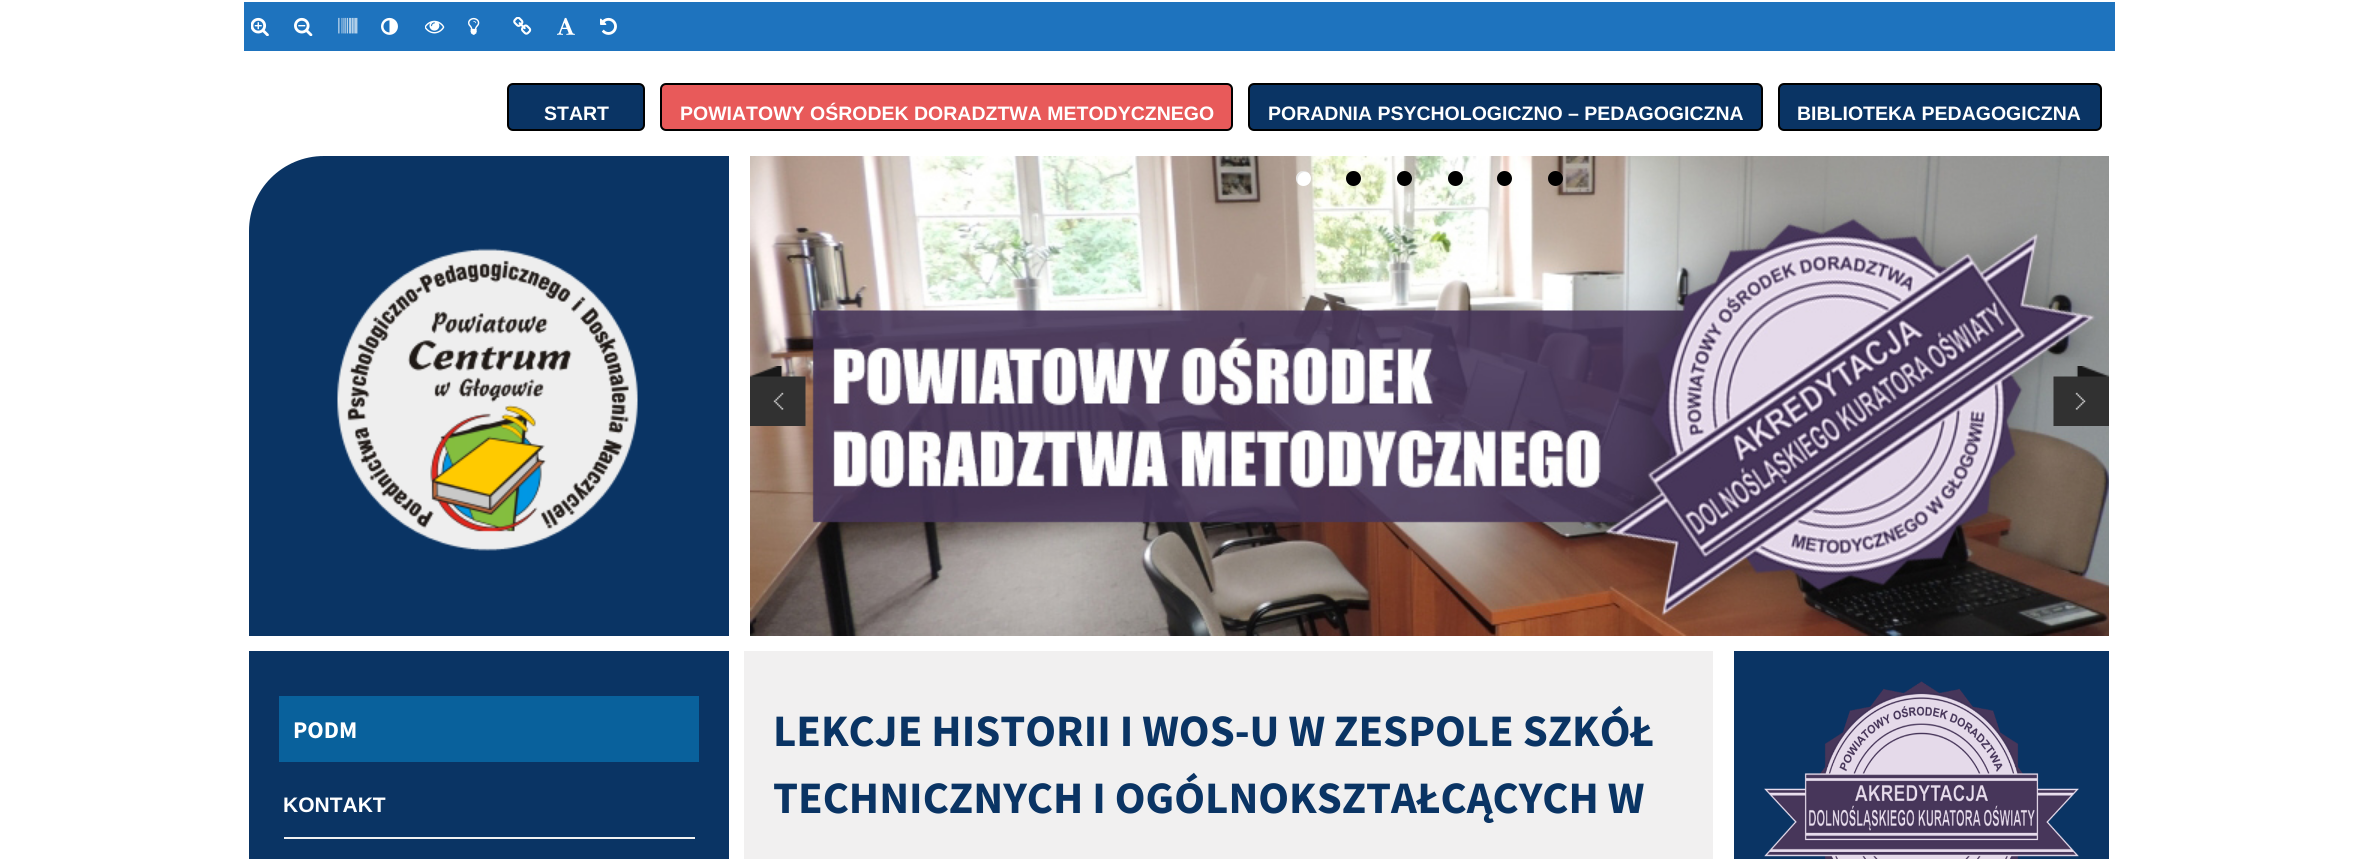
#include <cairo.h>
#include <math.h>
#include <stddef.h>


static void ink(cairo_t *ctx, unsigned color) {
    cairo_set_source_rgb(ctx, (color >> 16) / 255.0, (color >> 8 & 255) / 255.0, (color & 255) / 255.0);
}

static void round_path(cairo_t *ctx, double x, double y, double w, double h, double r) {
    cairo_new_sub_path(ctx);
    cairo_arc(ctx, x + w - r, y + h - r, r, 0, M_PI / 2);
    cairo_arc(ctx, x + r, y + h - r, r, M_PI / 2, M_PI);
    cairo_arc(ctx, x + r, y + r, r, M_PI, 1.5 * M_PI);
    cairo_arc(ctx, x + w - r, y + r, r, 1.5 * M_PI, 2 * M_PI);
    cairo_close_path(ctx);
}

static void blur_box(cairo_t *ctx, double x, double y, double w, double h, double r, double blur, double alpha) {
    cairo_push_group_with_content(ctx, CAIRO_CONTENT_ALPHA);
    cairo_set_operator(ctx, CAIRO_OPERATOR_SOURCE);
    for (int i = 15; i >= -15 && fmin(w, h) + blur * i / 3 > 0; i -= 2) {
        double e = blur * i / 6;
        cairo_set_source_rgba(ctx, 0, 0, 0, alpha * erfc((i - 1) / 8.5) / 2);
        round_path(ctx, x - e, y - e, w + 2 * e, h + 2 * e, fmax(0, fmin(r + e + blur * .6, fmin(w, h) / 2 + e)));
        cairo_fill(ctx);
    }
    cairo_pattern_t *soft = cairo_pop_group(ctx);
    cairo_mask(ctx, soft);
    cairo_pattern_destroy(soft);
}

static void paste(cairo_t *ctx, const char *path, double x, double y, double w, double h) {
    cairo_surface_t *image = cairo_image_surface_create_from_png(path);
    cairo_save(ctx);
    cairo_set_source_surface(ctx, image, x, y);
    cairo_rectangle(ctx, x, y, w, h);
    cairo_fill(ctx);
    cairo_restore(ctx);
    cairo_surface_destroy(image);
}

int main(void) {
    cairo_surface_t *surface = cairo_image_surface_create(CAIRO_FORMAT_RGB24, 2356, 859);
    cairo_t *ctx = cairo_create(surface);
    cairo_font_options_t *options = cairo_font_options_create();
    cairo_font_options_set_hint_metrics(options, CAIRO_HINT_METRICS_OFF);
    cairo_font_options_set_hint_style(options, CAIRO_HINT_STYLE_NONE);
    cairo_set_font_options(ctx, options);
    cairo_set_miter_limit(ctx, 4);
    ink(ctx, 0xFFFFFF);
    cairo_paint(ctx);
    ink(ctx, 0x1E73BE);
    cairo_rectangle(ctx, 244, 2, 1871, 49);
    cairo_fill(ctx);
    paste(ctx, "media/1.png", 251, 17, 18, 19);
    paste(ctx, "media/2.png", 294, 17, 19, 19);
    paste(ctx, "media/3.png", 338, 17, 20, 17);
    paste(ctx, "media/4.png", 381, 17, 17, 18);
    paste(ctx, "media/5.png", 425, 20, 20, 14);
    paste(ctx, "media/6.png", 468, 17, 12, 18);
    paste(ctx, "media/7.png", 513, 17, 19, 18);
    paste(ctx, "media/8.png", 557, 17, 18, 18);
    paste(ctx, "media/9.png", 600, 17, 17, 18);
    ink(ctx, 0x0A3464);
    round_path(ctx, 508, 84, 136, 46, 5);
    cairo_fill_preserve(ctx);
    ink(ctx, 0x000000);
    cairo_stroke(ctx);
    cairo_select_font_face(ctx, "Liberation Sans", CAIRO_FONT_SLANT_NORMAL, CAIRO_FONT_WEIGHT_BOLD);
    cairo_set_font_size(ctx, 19.5);
    ink(ctx, 0xFFFFFF);
    cairo_move_to(ctx, 544, 120);
    cairo_show_text(ctx, "START");
    ink(ctx, 0xE85A5A);
    round_path(ctx, 661, 84, 571, 46, 5);
    cairo_fill_preserve(ctx);
    ink(ctx, 0x000000);
    cairo_stroke(ctx);
    ink(ctx, 0xFFFFFF);
    cairo_move_to(ctx, 680, 120);
    cairo_show_text(ctx, "POWIATOWY OŚRODEK DORADZTWA METODYCZNEGO");
    ink(ctx, 0x0A3464);
    round_path(ctx, 1249, 84, 513, 46, 5);
    cairo_fill_preserve(ctx);
    ink(ctx, 0x000000);
    cairo_stroke(ctx);
    ink(ctx, 0xFFFFFF);
    cairo_move_to(ctx, 1268, 120);
    cairo_show_text(ctx, "PORADNIA PSYCHOLOGICZNO – PEDAGOGICZNA");
    ink(ctx, 0x0A3464);
    round_path(ctx, 1779, 84, 322, 46, 5);
    cairo_fill_preserve(ctx);
    ink(ctx, 0x000000);
    cairo_stroke(ctx);
    ink(ctx, 0xFFFFFF);
    cairo_move_to(ctx, 1797, 120);
    cairo_show_text(ctx, "BIBLIOTEKA PEDAGOGICZNA");
    ink(ctx, 0x0A3464);
    cairo_new_path(ctx);
    cairo_move_to(ctx, 324, 156);
    cairo_line_to(ctx, 729, 156);
    cairo_line_to(ctx, 729, 636);
    cairo_line_to(ctx, 249, 636);
    cairo_line_to(ctx, 249, 231);
    cairo_curve_to(ctx, 249, 189.5, 282.5, 156, 324, 156);
    cairo_close_path(ctx);
    cairo_fill(ctx);
    paste(ctx, "media/10.png", 337, 248, 301, 303);
    paste(ctx, "media/11.png", 750, 156, 1359, 480);
    ink(ctx, 0xFFFFFF);
    cairo_arc(ctx, 1303.5, 178.5, 7.5, 0, 2 * M_PI);
    cairo_fill(ctx);
    cairo_set_source_rgba(ctx, 0, 0, 0, 0.1);
    cairo_new_path(ctx);
    cairo_move_to(ctx, 1305, 172);
    cairo_line_to(ctx, 1308, 172.5);
    cairo_curve_to(ctx, 1301, 167, 1291.5, 177.5, 1298.5, 184);
    cairo_curve_to(ctx, 1296, 179.5, 1298.5, 172, 1305, 172);
    cairo_close_path(ctx);
    cairo_fill(ctx);
    ink(ctx, 0x000000);
    cairo_arc(ctx, 1353.5, 178.5, 7.5, 0, 2 * M_PI);
    cairo_fill(ctx);
    cairo_set_source_rgba(ctx, 0, 0, 0, 0.1);
    cairo_new_path(ctx);
    cairo_move_to(ctx, 1354, 172);
    cairo_curve_to(ctx, 1357, 172, 1359.5, 173.5, 1360.5, 176);
    cairo_curve_to(ctx, 1356.5, 165, 1340, 174.5, 1348, 183.5);
    cairo_curve_to(ctx, 1346, 178.5, 1348, 172, 1354, 172);
    cairo_close_path(ctx);
    cairo_fill(ctx);
    ink(ctx, 0x000000);
    cairo_arc(ctx, 1404.5, 178.5, 7.5, 0, 2 * M_PI);
    cairo_fill(ctx);
    cairo_set_source_rgba(ctx, 0, 0, 0, 0.1);
    cairo_new_path(ctx);
    cairo_move_to(ctx, 1406, 172);
    cairo_curve_to(ctx, 1407.5, 172, 1409, 172.5, 1410, 173.5);
    cairo_curve_to(ctx, 1403, 166, 1392, 177, 1399.5, 184);
    cairo_curve_to(ctx, 1397, 179.5, 1399.5, 172, 1406, 172);
    cairo_close_path(ctx);
    cairo_fill(ctx);
    ink(ctx, 0x000000);
    cairo_arc(ctx, 1455.5, 178.5, 7.5, 0, 2 * M_PI);
    cairo_fill(ctx);
    cairo_set_source_rgba(ctx, 0, 0, 0, 0.1);
    cairo_new_path(ctx);
    cairo_move_to(ctx, 1456, 172);
    cairo_curve_to(ctx, 1459, 172, 1461.5, 173.5, 1462.5, 176);
    cairo_curve_to(ctx, 1458.5, 165, 1442, 174.5, 1450, 183.5);
    cairo_curve_to(ctx, 1448, 178.5, 1450, 172, 1456, 172);
    cairo_close_path(ctx);
    cairo_fill(ctx);
    ink(ctx, 0x000000);
    cairo_arc(ctx, 1504.5, 178.5, 7.5, 0, 2 * M_PI);
    cairo_fill(ctx);
    cairo_set_source_rgba(ctx, 0, 0, 0, 0.1);
    cairo_new_path(ctx);
    cairo_move_to(ctx, 1506, 172);
    cairo_line_to(ctx, 1509, 172.5);
    cairo_curve_to(ctx, 1502, 167, 1492.5, 177.5, 1499.5, 184);
    cairo_curve_to(ctx, 1497, 179.5, 1499.5, 172, 1506, 172);
    cairo_close_path(ctx);
    cairo_fill(ctx);
    ink(ctx, 0xFFFFFF);
    blur_box(ctx, 1550, 173, 15, 15, 7.5, 1, 0.1);
    ink(ctx, 0x000000);
    cairo_arc(ctx, 1555.5, 178.5, 7.5, 0, 2 * M_PI);
    cairo_fill(ctx);
    cairo_set_source_rgba(ctx, 0, 0, 0, 0.1);
    cairo_new_path(ctx);
    cairo_move_to(ctx, 1557, 172);
    cairo_line_to(ctx, 1560, 172.5);
    cairo_curve_to(ctx, 1553, 167, 1543.5, 177.5, 1550.5, 184);
    cairo_curve_to(ctx, 1548, 179.5, 1550.5, 172, 1557, 172);
    cairo_close_path(ctx);
    cairo_fill(ctx);
    paste(ctx, "media/12.png", 750, 366, 56, 60);
    paste(ctx, "media/13.png", 2053, 366, 56, 60);
    ink(ctx, 0x0A3464);
    cairo_rectangle(ctx, 249, 651, 480, 208);
    cairo_fill(ctx);
    ink(ctx, 0x09619C);
    cairo_rectangle(ctx, 279, 696, 420, 66);
    cairo_fill(ctx);
    cairo_select_font_face(ctx, "Source Sans Pro", CAIRO_FONT_SLANT_NORMAL, CAIRO_FONT_WEIGHT_BOLD);
    cairo_set_font_size(ctx, 24);
    ink(ctx, 0xFFFFFF);
    cairo_move_to(ctx, 293, 738);
    cairo_show_text(ctx, "PODM");
    ink(ctx, 0xF1F1F1);
    cairo_rectangle(ctx, 284, 837, 411, 2);
    cairo_fill(ctx);
    cairo_select_font_face(ctx, "Liberation Sans", CAIRO_FONT_SLANT_NORMAL, CAIRO_FONT_WEIGHT_BOLD);
    cairo_set_font_size(ctx, 21);
    ink(ctx, 0xFFFFFF);
    cairo_move_to(ctx, 283, 812);
    cairo_show_text(ctx, "KONTAKT");
    ink(ctx, 0xF1F0F0);
    cairo_rectangle(ctx, 744, 651, 969, 208);
    cairo_fill(ctx);
    cairo_select_font_face(ctx, "Source Sans Pro", CAIRO_FONT_SLANT_NORMAL, CAIRO_FONT_WEIGHT_BOLD);
    cairo_set_font_size(ctx, 45);
    ink(ctx, 0x0A3464);
    cairo_move_to(ctx, 773, 746);
    cairo_show_text(ctx, "LEKCJE HISTORII I WOS-U W ZESPOLE SZKÓŁ");
    cairo_move_to(ctx, 773, 813);
    cairo_show_text(ctx, "TECHNICZNYCH I OGÓLNOKSZTAŁCĄCYCH W");
    cairo_rectangle(ctx, 1734, 651, 375, 208);
    cairo_fill(ctx);
    paste(ctx, "media/14.png", 1764, 681, 315, 178);
    cairo_surface_write_to_png(surface, "image.png");
    cairo_font_options_destroy(options);
    cairo_destroy(ctx);
    cairo_surface_destroy(surface);
    return 0;
}
